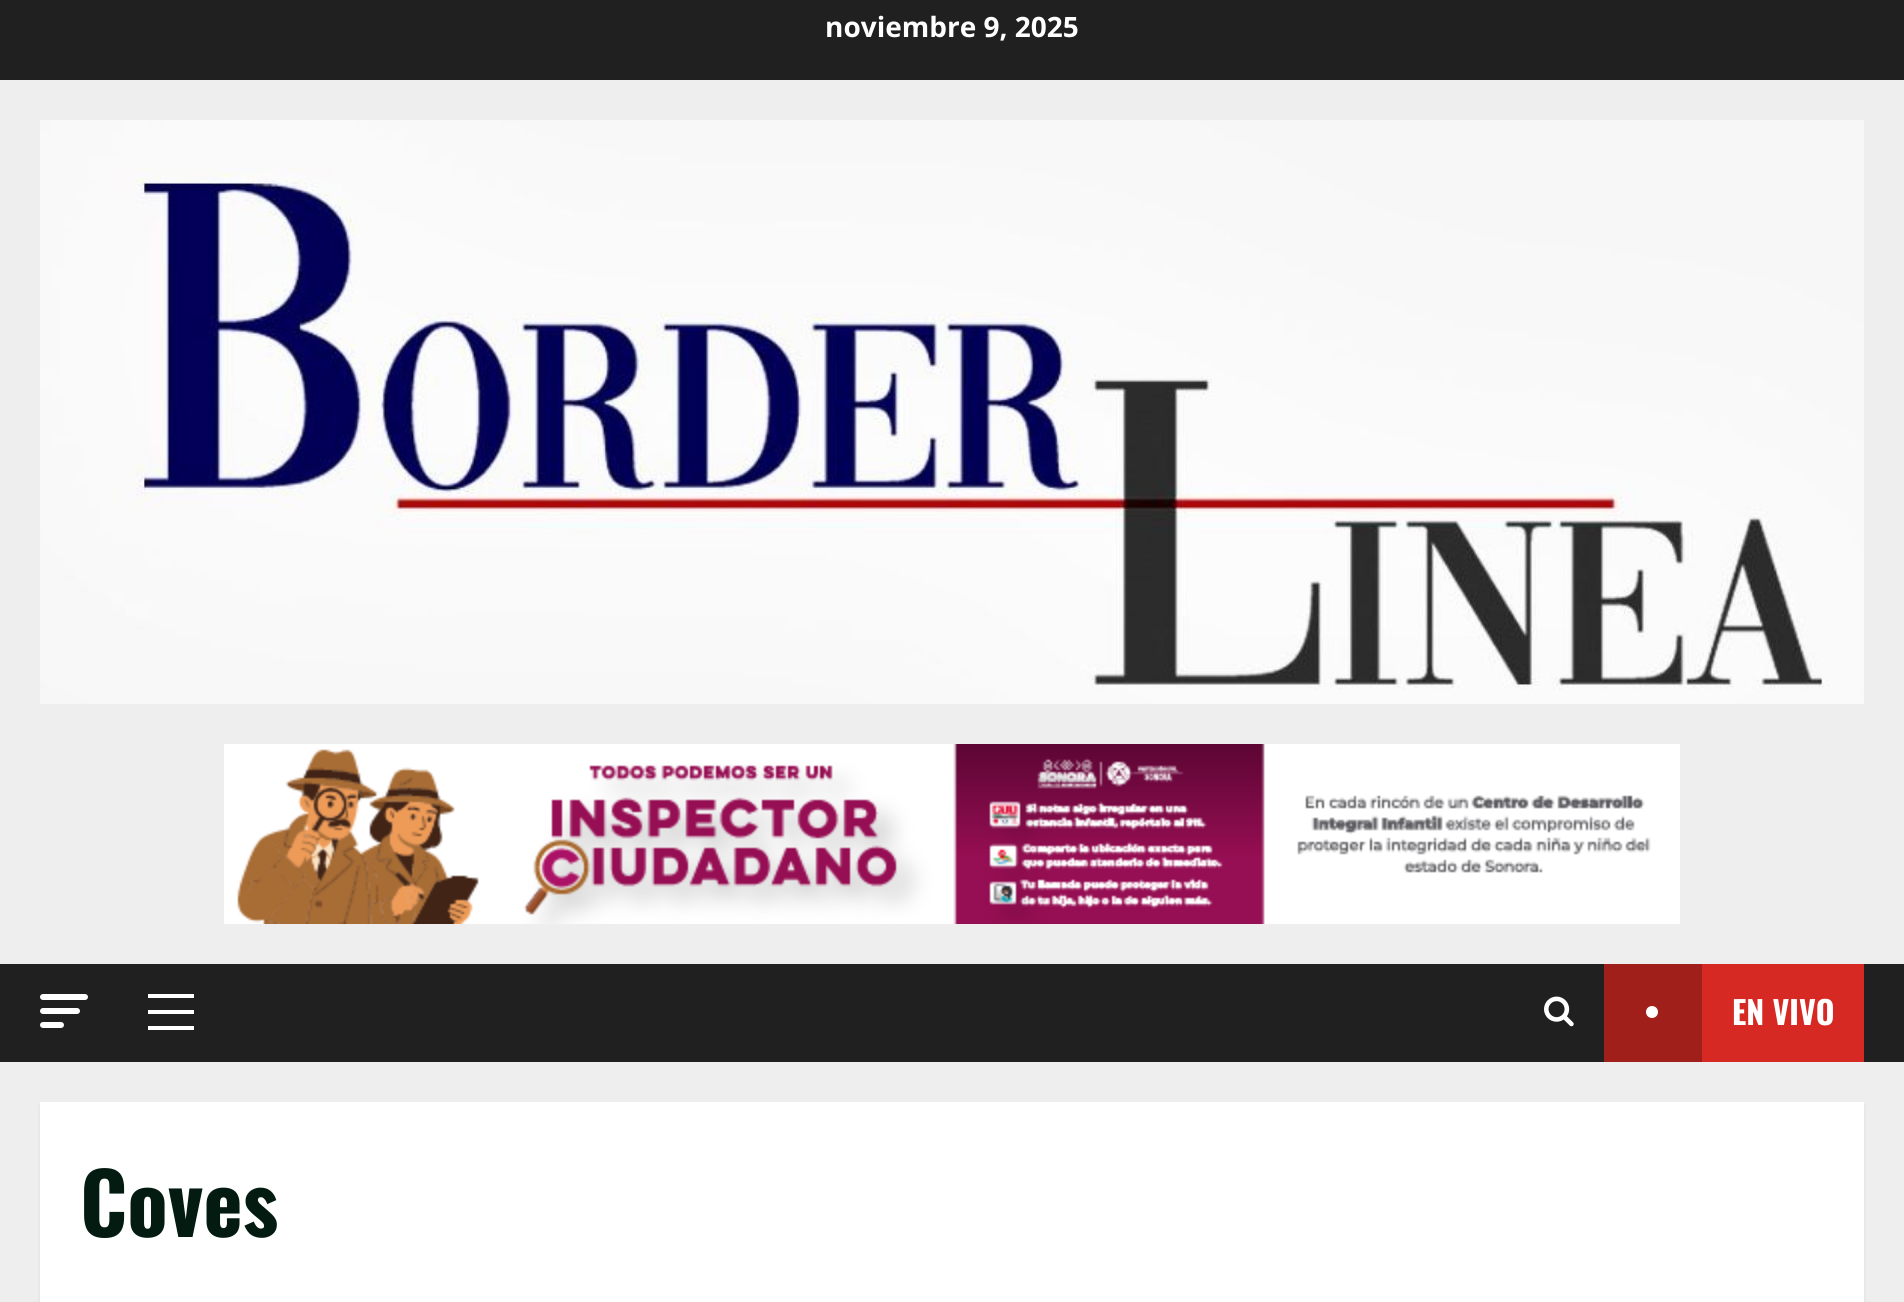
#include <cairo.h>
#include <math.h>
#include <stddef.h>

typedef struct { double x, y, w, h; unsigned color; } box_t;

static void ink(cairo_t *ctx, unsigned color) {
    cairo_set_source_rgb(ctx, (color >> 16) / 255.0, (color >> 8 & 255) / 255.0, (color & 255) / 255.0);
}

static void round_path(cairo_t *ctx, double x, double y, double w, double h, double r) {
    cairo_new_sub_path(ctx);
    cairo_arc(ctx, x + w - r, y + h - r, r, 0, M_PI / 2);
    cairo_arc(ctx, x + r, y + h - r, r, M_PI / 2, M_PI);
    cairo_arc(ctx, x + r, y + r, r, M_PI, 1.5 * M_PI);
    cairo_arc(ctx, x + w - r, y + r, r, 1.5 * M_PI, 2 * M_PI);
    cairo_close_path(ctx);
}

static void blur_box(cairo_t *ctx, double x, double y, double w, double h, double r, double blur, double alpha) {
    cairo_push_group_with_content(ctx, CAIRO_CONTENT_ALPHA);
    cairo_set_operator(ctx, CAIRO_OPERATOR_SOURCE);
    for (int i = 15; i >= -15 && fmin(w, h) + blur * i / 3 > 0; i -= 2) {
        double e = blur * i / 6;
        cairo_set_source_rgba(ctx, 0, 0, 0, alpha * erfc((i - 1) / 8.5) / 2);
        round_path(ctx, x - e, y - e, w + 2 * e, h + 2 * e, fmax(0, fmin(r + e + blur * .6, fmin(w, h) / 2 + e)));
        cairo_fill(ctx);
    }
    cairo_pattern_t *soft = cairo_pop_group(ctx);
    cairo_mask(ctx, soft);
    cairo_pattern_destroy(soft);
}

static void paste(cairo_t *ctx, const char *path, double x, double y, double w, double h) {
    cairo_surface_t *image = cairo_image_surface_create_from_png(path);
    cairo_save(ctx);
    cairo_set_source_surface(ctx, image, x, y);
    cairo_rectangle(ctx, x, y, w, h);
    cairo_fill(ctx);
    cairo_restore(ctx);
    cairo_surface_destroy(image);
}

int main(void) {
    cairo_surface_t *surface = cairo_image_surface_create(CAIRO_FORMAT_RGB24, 1904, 1302);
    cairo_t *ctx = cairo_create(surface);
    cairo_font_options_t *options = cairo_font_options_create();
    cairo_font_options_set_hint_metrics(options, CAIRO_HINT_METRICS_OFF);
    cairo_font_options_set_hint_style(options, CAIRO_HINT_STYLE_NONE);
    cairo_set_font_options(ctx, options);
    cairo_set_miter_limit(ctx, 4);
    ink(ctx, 0xEEEEEE);
    cairo_paint(ctx);
    ink(ctx, 0x202020);
    cairo_rectangle(ctx, 0, 0, 1904, 80);
    cairo_fill(ctx);
    cairo_select_font_face(ctx, "Open Sans", CAIRO_FONT_SLANT_NORMAL, CAIRO_FONT_WEIGHT_BOLD);
    cairo_set_font_size(ctx, 28);
    ink(ctx, 0xFFFFFF);
    cairo_move_to(ctx, 825, 37);
    cairo_show_text(ctx, "noviembre 9, 2025");
    paste(ctx, "media/1.png", 40, 120, 1824, 584);
    paste(ctx, "media/2.png", 224, 744, 1456, 180);
    ink(ctx, 0x202020);
    cairo_rectangle(ctx, 0, 964, 1904, 98);
    cairo_fill(ctx);
    ink(ctx, 0xFFFFFF);
    round_path(ctx, 40, 994, 48, 6, 3);
    cairo_fill(ctx);
    round_path(ctx, 40, 1008, 40, 6, 3);
    cairo_fill(ctx);
    round_path(ctx, 40, 1022, 24, 6, 3);
    cairo_fill(ctx);
    {
        static const box_t items[] = {
            {148, 1010, 46, 4, 0xFFFFFF},
            {148, 994, 46, 4, 0xFFFFFF},
            {148, 1026, 46, 4, 0xFFFFFF},
        };
        for (size_t i = 0; i < sizeof items / sizeof *items; i++) {
            ink(ctx, items[i].color);
            cairo_rectangle(ctx, items[i].x, items[i].y, items[i].w, items[i].h);
            cairo_fill(ctx);
        }
    }
    paste(ctx, "media/3.png", 1544, 996, 30, 31);
    ink(ctx, 0xD72924);
    cairo_rectangle(ctx, 1702, 964, 162, 98);
    cairo_fill(ctx);
    ink(ctx, 0xA11F1B);
    cairo_rectangle(ctx, 1604, 964, 98, 98);
    cairo_fill(ctx);
    ink(ctx, 0xFFFFFF);
    cairo_arc(ctx, 1652, 1012, 6, 0, 2 * M_PI);
    cairo_fill(ctx);
    cairo_select_font_face(ctx, "Oswald", CAIRO_FONT_SLANT_NORMAL, CAIRO_FONT_WEIGHT_BOLD);
    cairo_set_font_size(ctx, 32);
    cairo_move_to(ctx, 1732, 1025);
    cairo_show_text(ctx, "EN VIVO");
    ink(ctx, 0x000000);
    blur_box(ctx, 40, 1106, 1824, 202, 0, 2, 0.08);
    ink(ctx, 0xFFFFFF);
    cairo_rectangle(ctx, 40, 1102, 1824, 200);
    cairo_fill(ctx);
    cairo_set_font_size(ctx, 84);
    ink(ctx, 0x031B11);
    cairo_move_to(ctx, 80, 1237);
    cairo_show_text(ctx, "Coves");
    cairo_surface_write_to_png(surface, "image.png");
    cairo_font_options_destroy(options);
    cairo_destroy(ctx);
    cairo_surface_destroy(surface);
    return 0;
}
